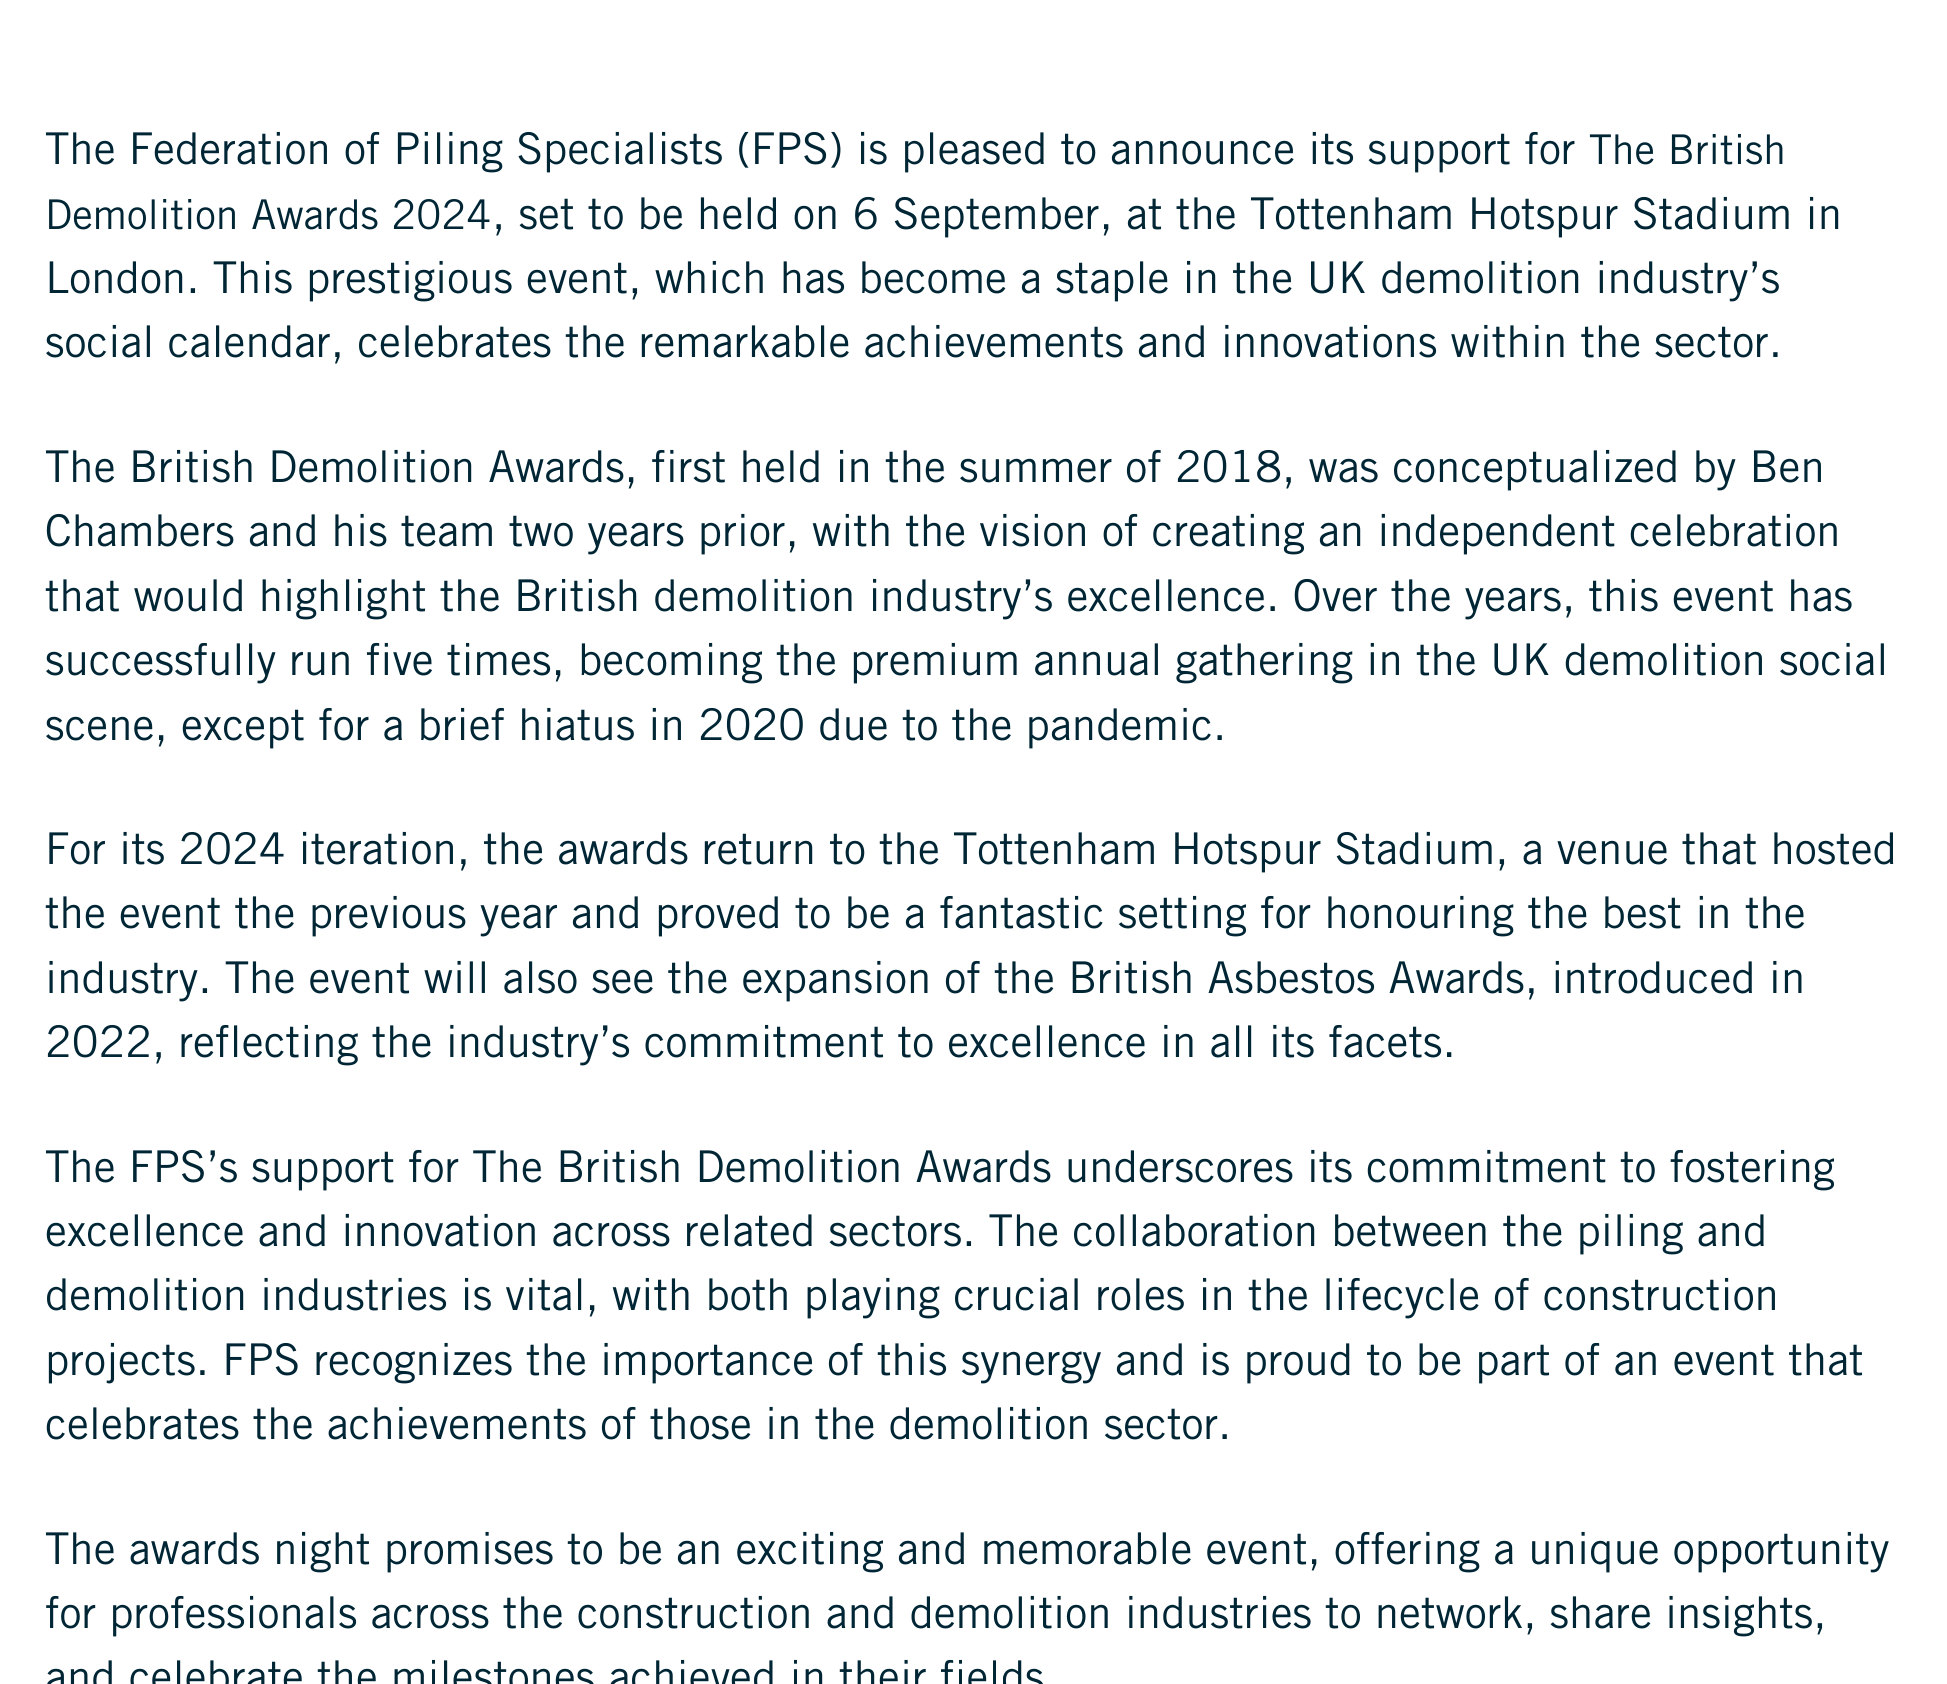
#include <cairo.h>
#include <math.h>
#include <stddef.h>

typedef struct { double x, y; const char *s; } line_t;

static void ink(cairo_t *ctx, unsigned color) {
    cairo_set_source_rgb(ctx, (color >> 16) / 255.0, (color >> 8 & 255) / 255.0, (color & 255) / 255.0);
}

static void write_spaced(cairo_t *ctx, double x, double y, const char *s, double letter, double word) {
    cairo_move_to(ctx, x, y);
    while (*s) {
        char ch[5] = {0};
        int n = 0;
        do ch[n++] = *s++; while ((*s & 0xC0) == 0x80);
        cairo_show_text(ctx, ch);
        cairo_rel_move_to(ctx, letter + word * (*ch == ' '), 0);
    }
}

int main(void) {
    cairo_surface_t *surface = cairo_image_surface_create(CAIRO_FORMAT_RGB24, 1947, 1684);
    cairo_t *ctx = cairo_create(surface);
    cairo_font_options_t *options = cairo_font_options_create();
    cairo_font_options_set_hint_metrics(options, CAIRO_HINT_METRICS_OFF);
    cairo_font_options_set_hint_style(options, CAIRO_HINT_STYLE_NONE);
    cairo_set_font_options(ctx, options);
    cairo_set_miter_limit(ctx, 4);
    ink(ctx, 0xFFFFFF);
    cairo_paint(ctx);
    cairo_select_font_face(ctx, "Trade Gothic", CAIRO_FONT_SLANT_NORMAL, CAIRO_FONT_WEIGHT_NORMAL);
    cairo_set_font_size(ctx, 43.8);
    ink(ctx, 0x002635);
    write_spaced(ctx, 45, 164, "The Federation of Piling Specialists (FPS) is pleased to announce its support for", 0, -0.2);
    cairo_set_font_size(ctx, 41);
    cairo_move_to(ctx, 1589, 164);
    cairo_show_text(ctx, "The British");
    cairo_move_to(ctx, 45, 229);
    cairo_show_text(ctx, "Demolition Awards 2024");
    cairo_set_font_size(ctx, 43.8);
    write_spaced(ctx, 492, 229, ", set to be held on 6 September, at the Tottenham Hotspur Stadium in", 0, -0.1);
    {
        static const line_t items[] = {
            {45, 293, "London. This prestigious event, which has become a staple in the UK demolition industry’s"},
            {45, 357, "social calendar, celebrates the remarkable achievements and innovations within the sector."},
            {45, 482, "The British Demolition Awards, first held in the summer of 2018, was conceptualized by Ben"},
            {45, 546, "Chambers and his team two years prior, with the vision of creating an independent celebration"},
            {45, 611, "that would highlight the British demolition industry’s excellence. Over the years, this event has"},
            {45, 675, "successfully run five times, becoming the premium annual gathering in the UK demolition social"},
        };
        for (size_t i = 0; i < sizeof items / sizeof *items; i++) {
            write_spaced(ctx, items[i].x, items[i].y, items[i].s, 0, -0.25);
        }
    }
    write_spaced(ctx, 45, 740, "scene, except for a brief hiatus in 2020 due to the pandemic.", 0, -0.2);
    write_spaced(ctx, 45, 864, "For its 2024 iteration, the awards return to the Tottenham Hotspur Stadium, a venue that hosted", 0, -0.2);
    write_spaced(ctx, 45, 928, "the event the previous year and proved to be a fantastic setting for honouring the best in the", 0, -0.1);
    {
        static const line_t items[] = {
            {45, 993, "industry. The event will also see the expansion of the British Asbestos Awards, introduced in"},
            {45, 1057, "2022, reflecting the industry’s commitment to excellence in all its facets."},
            {45, 1182, "The FPS’s support for The British Demolition Awards underscores its commitment to fostering"},
            {45, 1246, "excellence and innovation across related sectors. The collaboration between the piling and"},
            {45, 1310, "demolition industries is vital, with both playing crucial roles in the lifecycle of construction"},
        };
        for (size_t i = 0; i < sizeof items / sizeof *items; i++) {
            write_spaced(ctx, items[i].x, items[i].y, items[i].s, 0, -0.25);
        }
    }
    write_spaced(ctx, 45, 1375, "projects. FPS recognizes the importance of this synergy and is proud to be part of an event that", 0, -0.2);
    {
        static const line_t items[] = {
            {45, 1439, "celebrates the achievements of those in the demolition sector."},
            {45, 1564, "The awards night promises to be an exciting and memorable event, offering a unique opportunity"},
            {45, 1628, "for professionals across the construction and demolition industries to network, share insights,"},
            {45, 1692, "and celebrate the milestones achieved in their fields"},
        };
        for (size_t i = 0; i < sizeof items / sizeof *items; i++) {
            write_spaced(ctx, items[i].x, items[i].y, items[i].s, 0, -0.25);
        }
    }
    cairo_surface_write_to_png(surface, "image.png");
    cairo_font_options_destroy(options);
    cairo_destroy(ctx);
    cairo_surface_destroy(surface);
    return 0;
}
